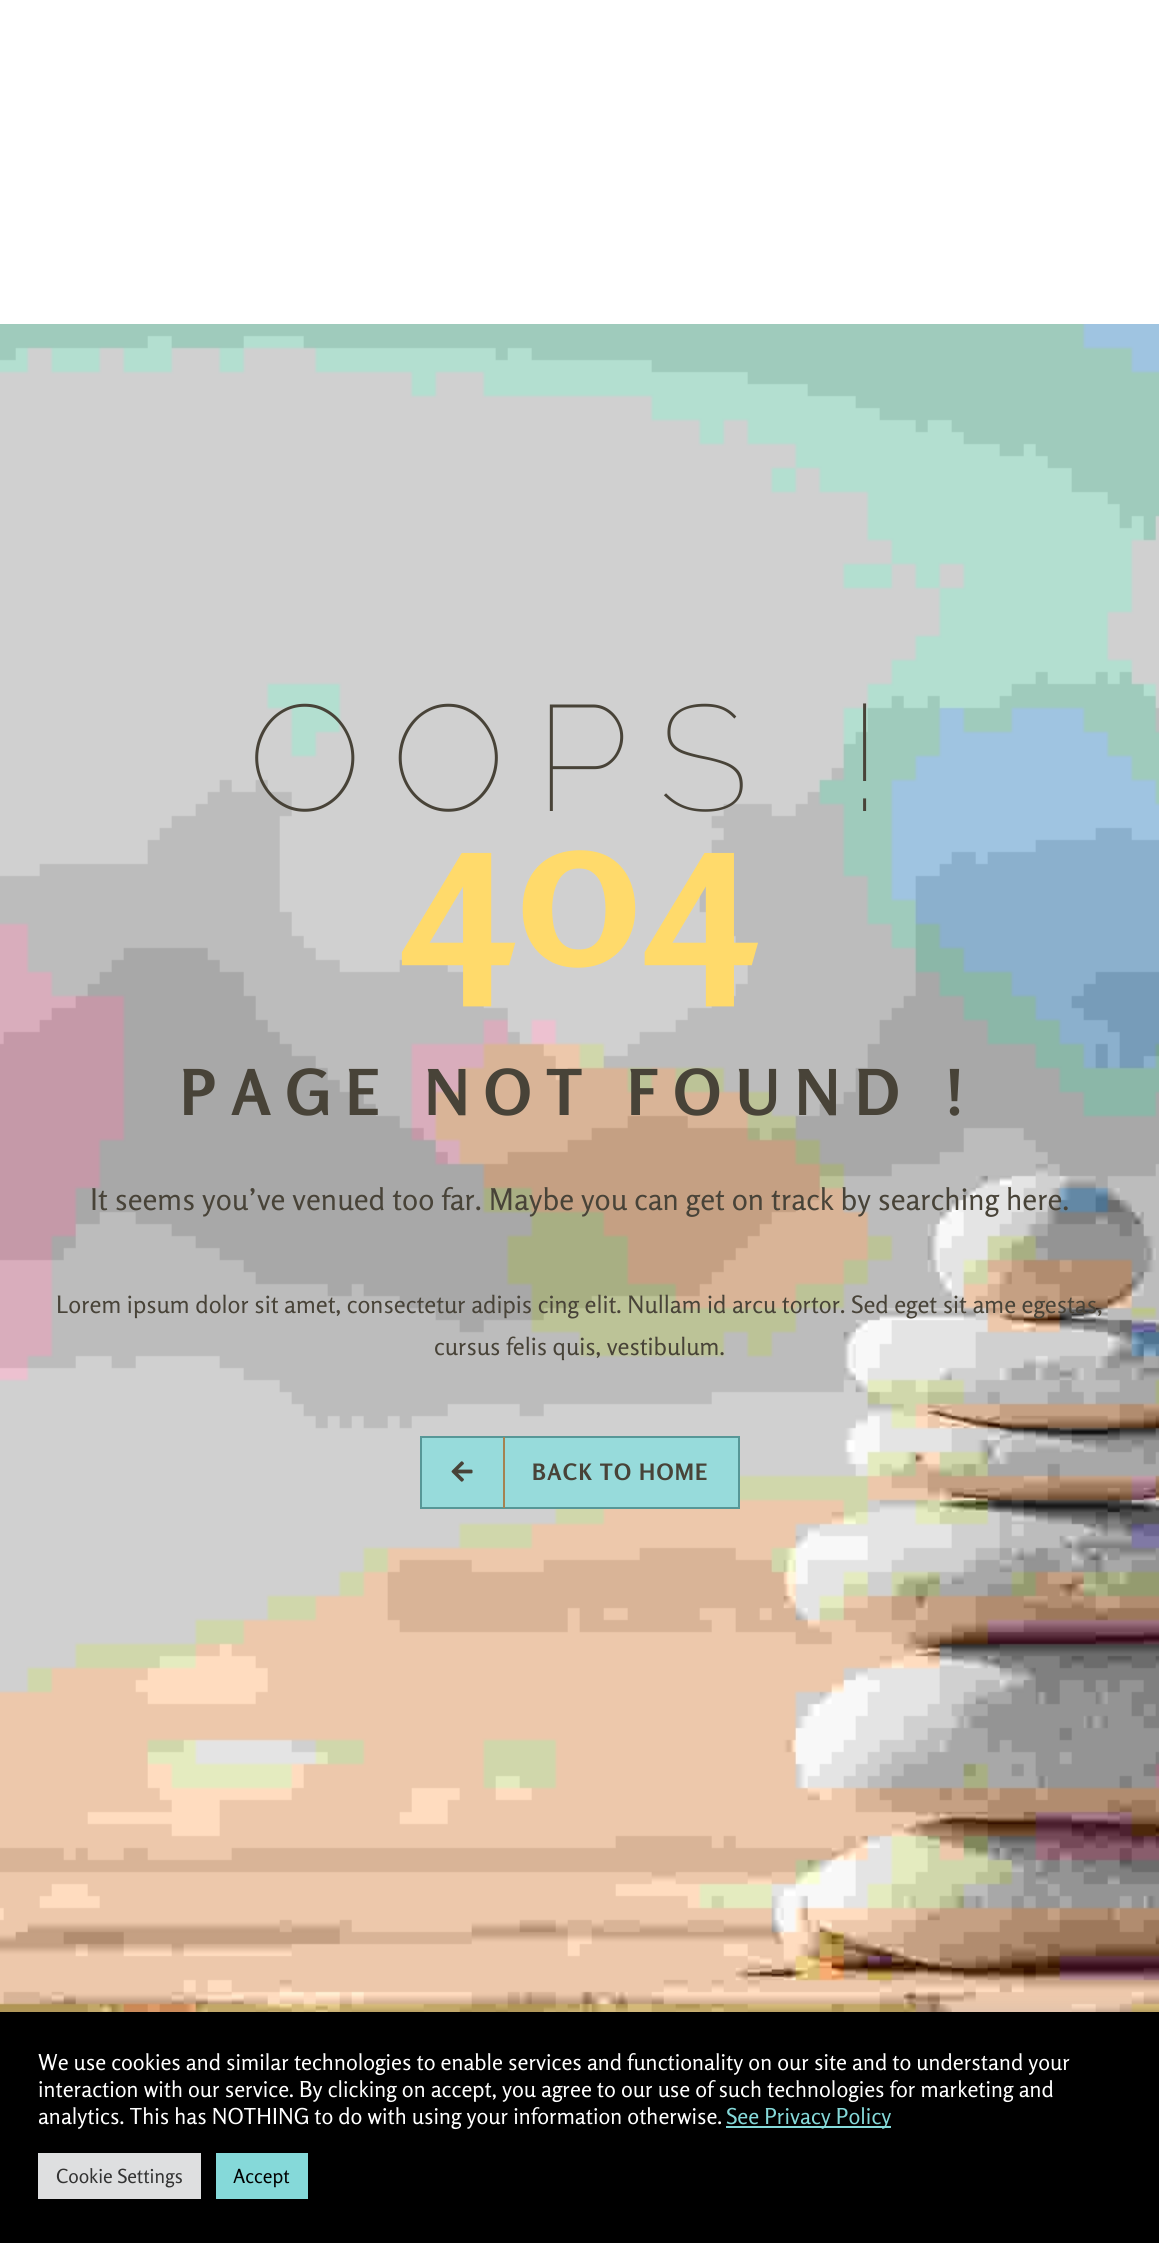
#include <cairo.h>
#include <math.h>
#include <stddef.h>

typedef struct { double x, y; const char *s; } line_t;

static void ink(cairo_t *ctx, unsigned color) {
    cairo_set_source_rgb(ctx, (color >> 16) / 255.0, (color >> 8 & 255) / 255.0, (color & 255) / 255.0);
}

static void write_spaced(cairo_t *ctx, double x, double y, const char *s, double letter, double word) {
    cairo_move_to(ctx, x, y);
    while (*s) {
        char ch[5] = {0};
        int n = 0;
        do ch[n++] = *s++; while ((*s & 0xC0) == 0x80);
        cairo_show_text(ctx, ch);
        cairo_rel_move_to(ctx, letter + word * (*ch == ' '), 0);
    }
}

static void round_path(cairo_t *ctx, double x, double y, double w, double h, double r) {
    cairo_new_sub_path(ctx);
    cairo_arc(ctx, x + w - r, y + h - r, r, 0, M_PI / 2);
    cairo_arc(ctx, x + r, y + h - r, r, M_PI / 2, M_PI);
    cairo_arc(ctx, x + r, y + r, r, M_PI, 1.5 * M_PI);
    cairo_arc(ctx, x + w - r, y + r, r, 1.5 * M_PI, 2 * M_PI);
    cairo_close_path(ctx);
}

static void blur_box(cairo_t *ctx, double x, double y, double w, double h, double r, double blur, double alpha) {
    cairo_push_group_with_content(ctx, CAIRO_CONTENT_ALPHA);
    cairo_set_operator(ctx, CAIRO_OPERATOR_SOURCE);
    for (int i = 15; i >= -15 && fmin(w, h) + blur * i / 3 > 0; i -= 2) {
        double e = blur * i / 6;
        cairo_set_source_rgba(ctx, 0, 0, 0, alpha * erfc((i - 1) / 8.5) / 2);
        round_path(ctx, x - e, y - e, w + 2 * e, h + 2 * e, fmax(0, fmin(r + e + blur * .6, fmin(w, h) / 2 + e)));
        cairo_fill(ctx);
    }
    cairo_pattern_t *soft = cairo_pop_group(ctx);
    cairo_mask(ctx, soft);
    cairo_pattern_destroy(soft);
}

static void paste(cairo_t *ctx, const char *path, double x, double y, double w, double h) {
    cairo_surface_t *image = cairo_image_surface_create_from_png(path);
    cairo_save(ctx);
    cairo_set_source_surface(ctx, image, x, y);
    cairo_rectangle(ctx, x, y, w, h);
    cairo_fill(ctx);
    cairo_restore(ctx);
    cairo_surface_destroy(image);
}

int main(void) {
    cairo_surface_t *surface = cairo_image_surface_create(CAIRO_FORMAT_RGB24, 1159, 2243);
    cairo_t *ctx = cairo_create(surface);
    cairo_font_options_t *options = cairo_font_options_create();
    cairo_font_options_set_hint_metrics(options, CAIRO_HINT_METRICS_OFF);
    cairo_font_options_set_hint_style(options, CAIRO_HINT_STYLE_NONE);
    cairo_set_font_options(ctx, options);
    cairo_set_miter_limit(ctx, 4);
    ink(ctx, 0xFFFFFF);
    cairo_paint(ctx);
    paste(ctx, "media/1.png", 0, 324, 1159, 1688);
    cairo_select_font_face(ctx, "Raleway Thin", CAIRO_FONT_SLANT_NORMAL, CAIRO_FONT_WEIGHT_NORMAL);
    cairo_set_font_size(ctx, 150);
    ink(ctx, 0x484338);
    write_spaced(ctx, 248, 811, "OOPS !", 30, 0);
    cairo_select_font_face(ctx, "Rosario", CAIRO_FONT_SLANT_NORMAL, CAIRO_FONT_WEIGHT_BOLD);
    cairo_set_font_size(ctx, 225);
    ink(ctx, 0xFFDA6B);
    write_spaced(ctx, 401, 965, "404", 1.5, 0);
    cairo_set_font_size(ctx, 63);
    ink(ctx, 0x484338);
    write_spaced(ctx, 180, 1115, "PAGE NOT FOUND !", 15, 0);
    cairo_select_font_face(ctx, "Rosario", CAIRO_FONT_SLANT_NORMAL, CAIRO_FONT_WEIGHT_NORMAL);
    cairo_set_font_size(ctx, 30);
    cairo_move_to(ctx, 90, 1210);
    cairo_show_text(ctx, "It seems you’ve venued too far. Maybe you can get on track by searching here.");
    cairo_set_font_size(ctx, 24);
    cairo_move_to(ctx, 56, 1313);
    cairo_show_text(ctx, "Lorem ipsum dolor sit amet, consectetur adipis cing elit. Nullam id arcu tortor. Sed eget sit ame egestas,");
    cairo_move_to(ctx, 434, 1355);
    cairo_show_text(ctx, "cursus felis quis, vestibulum.");
    ink(ctx, 0x97DBDB);
    cairo_rectangle(ctx, 421, 1437, 318, 71);
    cairo_fill_preserve(ctx);
    ink(ctx, 0x579797);
    cairo_stroke(ctx);
    paste(ctx, "media/2.png", 451, 1461, 22, 21);
    ink(ctx, 0xA58251);
    cairo_rectangle(ctx, 503, 1437, 2, 71);
    cairo_fill(ctx);
    cairo_select_font_face(ctx, "Rosario", CAIRO_FONT_SLANT_NORMAL, CAIRO_FONT_WEIGHT_BOLD);
    cairo_set_font_size(ctx, 22.5);
    ink(ctx, 0x484338);
    write_spaced(ctx, 532, 1480, "BACK TO HOME", 1.5, 0);
    ink(ctx, 0xACABAB);
    blur_box(ctx, 0, 2010, 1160, 233, 0, 7.5, 0.3);
    ink(ctx, 0x000000);
    cairo_rectangle(ctx, 0, 2012, 1159, 231);
    cairo_fill(ctx);
    cairo_select_font_face(ctx, "Rosario", CAIRO_FONT_SLANT_NORMAL, CAIRO_FONT_WEIGHT_NORMAL);
    cairo_set_font_size(ctx, 22);
    ink(ctx, 0xFFFFFF);
    {
        static const line_t items[] = {
            {38, 2070, "We use cookies and similar technologies to enable services and functionality on our site and to understand your"},
            {38, 2097, "interaction with our service. By clicking on accept, you agree to our use of such technologies for marketing and"},
            {38, 2124, "analytics. This has NOTHING to do with using your information otherwise."},
        };
        for (size_t i = 0; i < sizeof items / sizeof *items; i++) {
            cairo_move_to(ctx, items[i].x, items[i].y);
            cairo_show_text(ctx, items[i].s);
        }
    }
    ink(ctx, 0x85D9D9);
    cairo_rectangle(ctx, 726, 2126, 165, 2);
    cairo_fill(ctx);
    cairo_move_to(ctx, 726, 2124);
    cairo_show_text(ctx, "See Privacy Policy");
    ink(ctx, 0xDEDFE0);
    cairo_rectangle(ctx, 38, 2153, 163, 46);
    cairo_fill(ctx);
    cairo_set_font_size(ctx, 19.5);
    ink(ctx, 0x333333);
    cairo_move_to(ctx, 56, 2183);
    cairo_show_text(ctx, "Cookie Settings");
    ink(ctx, 0x85D9D9);
    cairo_rectangle(ctx, 216, 2153, 92, 46);
    cairo_fill(ctx);
    ink(ctx, 0x000000);
    cairo_move_to(ctx, 233, 2183);
    cairo_show_text(ctx, "Accept");
    cairo_surface_write_to_png(surface, "image.png");
    cairo_font_options_destroy(options);
    cairo_destroy(ctx);
    cairo_surface_destroy(surface);
    return 0;
}
